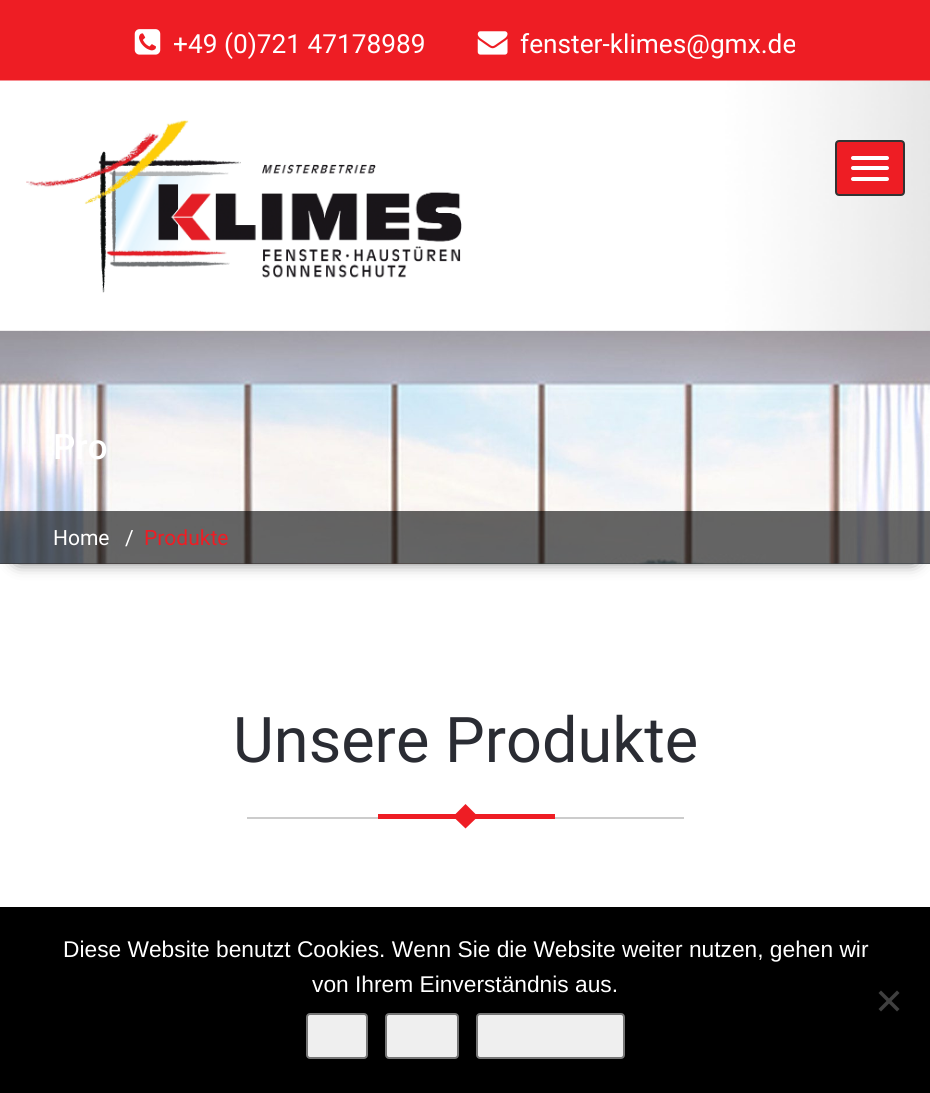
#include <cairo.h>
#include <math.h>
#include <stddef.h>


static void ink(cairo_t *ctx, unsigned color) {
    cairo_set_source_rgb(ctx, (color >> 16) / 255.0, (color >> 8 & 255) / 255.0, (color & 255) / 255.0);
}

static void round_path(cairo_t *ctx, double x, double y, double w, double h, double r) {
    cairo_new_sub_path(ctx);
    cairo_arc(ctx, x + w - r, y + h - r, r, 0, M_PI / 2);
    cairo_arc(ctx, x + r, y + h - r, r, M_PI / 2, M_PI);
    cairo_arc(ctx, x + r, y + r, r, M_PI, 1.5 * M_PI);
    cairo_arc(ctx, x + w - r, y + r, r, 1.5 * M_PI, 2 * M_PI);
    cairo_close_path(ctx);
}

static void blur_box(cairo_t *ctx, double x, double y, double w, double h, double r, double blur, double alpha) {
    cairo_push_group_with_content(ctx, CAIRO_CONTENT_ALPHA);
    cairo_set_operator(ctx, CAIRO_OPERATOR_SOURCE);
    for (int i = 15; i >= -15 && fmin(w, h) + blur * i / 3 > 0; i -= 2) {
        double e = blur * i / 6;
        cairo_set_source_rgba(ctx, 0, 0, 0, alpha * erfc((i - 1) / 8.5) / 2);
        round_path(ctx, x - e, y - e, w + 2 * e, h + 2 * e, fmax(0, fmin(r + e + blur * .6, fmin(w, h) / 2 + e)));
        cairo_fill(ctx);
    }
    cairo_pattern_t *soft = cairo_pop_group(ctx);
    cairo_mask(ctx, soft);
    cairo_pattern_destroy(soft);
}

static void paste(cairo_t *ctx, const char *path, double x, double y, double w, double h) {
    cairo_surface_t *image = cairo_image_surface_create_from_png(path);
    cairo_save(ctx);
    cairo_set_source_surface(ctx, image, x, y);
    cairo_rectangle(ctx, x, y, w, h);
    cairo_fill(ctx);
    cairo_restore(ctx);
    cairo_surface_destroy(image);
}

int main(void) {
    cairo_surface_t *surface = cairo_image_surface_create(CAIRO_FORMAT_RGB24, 930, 1093);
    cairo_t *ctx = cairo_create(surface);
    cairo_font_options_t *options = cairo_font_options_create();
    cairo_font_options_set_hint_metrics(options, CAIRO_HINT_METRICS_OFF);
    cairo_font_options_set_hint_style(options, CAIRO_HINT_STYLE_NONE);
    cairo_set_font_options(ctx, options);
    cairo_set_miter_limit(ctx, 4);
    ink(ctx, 0xFFFFFF);
    cairo_paint(ctx);
    ink(ctx, 0xEE1D24);
    cairo_rectangle(ctx, 0, 0, 930, 81);
    cairo_fill(ctx);
    paste(ctx, "media/1.png", 134, 29, 27, 26);
    cairo_select_font_face(ctx, "Roboto", CAIRO_FONT_SLANT_NORMAL, CAIRO_FONT_WEIGHT_NORMAL);
    cairo_set_font_size(ctx, 26.25);
    ink(ctx, 0xFFFFFF);
    cairo_move_to(ctx, 173, 53);
    cairo_show_text(ctx, "+49 (0)721 47178989");
    paste(ctx, "media/2.png", 477, 31, 31, 24);
    cairo_move_to(ctx, 520, 53);
    cairo_show_text(ctx, "fenster-klimes@gmx.de");
    ink(ctx, 0x000000);
    blur_box(ctx, 18, 361, 896, 197, 0, 9, 1);
    paste(ctx, "media/5.png", 0, 330, 930, 234);
    paste(ctx, "media/6.png", 0, 330, 930, 234);
    paste(ctx, "media/3.png", 0, 80, 930, 251);
    paste(ctx, "media/4.png", 26, 120, 436, 173);
    ink(ctx, 0xEE1D24);
    round_path(ctx, 836, 141, 68, 54, 3);
    cairo_fill_preserve(ctx);
    ink(ctx, 0x333333);
    cairo_stroke(ctx);
    ink(ctx, 0xFFFFFF);
    round_path(ctx, 851, 156, 38, 4, 2);
    cairo_fill(ctx);
    round_path(ctx, 851, 166, 38, 4, 2);
    cairo_fill(ctx);
    round_path(ctx, 851, 177, 38, 4, 2);
    cairo_fill(ctx);
    cairo_select_font_face(ctx, "Roboto Medium", CAIRO_FONT_SLANT_NORMAL, CAIRO_FONT_WEIGHT_NORMAL);
    cairo_set_font_size(ctx, 35);
    cairo_move_to(ctx, 53, 459);
    cairo_show_text(ctx, "Pro");
    cairo_set_source_rgba(ctx, 0, 0, 0, 0.6);
    cairo_rectangle(ctx, 0, 511, 930, 53);
    cairo_fill(ctx);
    cairo_select_font_face(ctx, "Roboto", CAIRO_FONT_SLANT_NORMAL, CAIRO_FONT_WEIGHT_NORMAL);
    cairo_set_font_size(ctx, 21);
    ink(ctx, 0xFFFFFF);
    cairo_move_to(ctx, 53, 545);
    cairo_show_text(ctx, "Home");
    cairo_move_to(ctx, 125, 545);
    cairo_show_text(ctx, "/");
    ink(ctx, 0xEE1D24);
    cairo_move_to(ctx, 144, 545);
    cairo_show_text(ctx, "Produkte");
    cairo_set_font_size(ctx, 63);
    ink(ctx, 0x2A2C33);
    cairo_move_to(ctx, 233, 762);
    cairo_show_text(ctx, "Unsere Produkte");
    ink(ctx, 0xCCCCCC);
    cairo_rectangle(ctx, 247, 817, 437, 2);
    cairo_fill(ctx);
    ink(ctx, 0xEE1D24);
    cairo_rectangle(ctx, 378, 814, 177, 5);
    cairo_fill(ctx);
    cairo_new_path(ctx);
    cairo_move_to(ctx, 465.5, 804);
    cairo_line_to(ctx, 478, 816.5);
    cairo_line_to(ctx, 465.5, 828.5);
    cairo_line_to(ctx, 453, 816.5);
    cairo_close_path(ctx);
    cairo_fill(ctx);
    ink(ctx, 0x000000);
    cairo_rectangle(ctx, 0, 907, 930, 186);
    cairo_fill(ctx);
    cairo_select_font_face(ctx, "Liberation Sans", CAIRO_FONT_SLANT_NORMAL, CAIRO_FONT_WEIGHT_NORMAL);
    cairo_set_font_size(ctx, 22.75);
    ink(ctx, 0xFFFFFF);
    cairo_move_to(ctx, 63, 957);
    cairo_show_text(ctx, "Diese Website benutzt Cookies. Wenn Sie die Website weiter nutzen, gehen wir");
    cairo_move_to(ctx, 312, 992);
    cairo_show_text(ctx, "von Ihrem Einverständnis aus.");
    ink(ctx, 0x404040);
    cairo_new_path(ctx);
    cairo_move_to(ctx, 897, 990.5);
    cairo_line_to(ctx, 899.5, 993);
    cairo_line_to(ctx, 881, 1011.5);
    cairo_line_to(ctx, 878.5, 1009);
    cairo_close_path(ctx);
    cairo_fill(ctx);
    cairo_new_path(ctx);
    cairo_move_to(ctx, 878.5, 993);
    cairo_line_to(ctx, 881, 990.5);
    cairo_line_to(ctx, 899.5, 1009);
    cairo_line_to(ctx, 897, 1011.5);
    cairo_close_path(ctx);
    cairo_fill(ctx);
    ink(ctx, 0xEFEFEF);
    round_path(ctx, 307, 1014, 60, 44, 3);
    cairo_fill_preserve(ctx);
    ink(ctx, 0x767676);
    cairo_stroke(ctx);
    ink(ctx, 0xEFEFEF);
    round_path(ctx, 386, 1014, 72, 44, 3);
    cairo_fill_preserve(ctx);
    ink(ctx, 0x767676);
    cairo_stroke(ctx);
    ink(ctx, 0xEFEFEF);
    round_path(ctx, 477, 1014, 147, 44, 3);
    cairo_fill_preserve(ctx);
    ink(ctx, 0x767676);
    cairo_stroke(ctx);
    cairo_surface_write_to_png(surface, "image.png");
    cairo_font_options_destroy(options);
    cairo_destroy(ctx);
    cairo_surface_destroy(surface);
    return 0;
}
